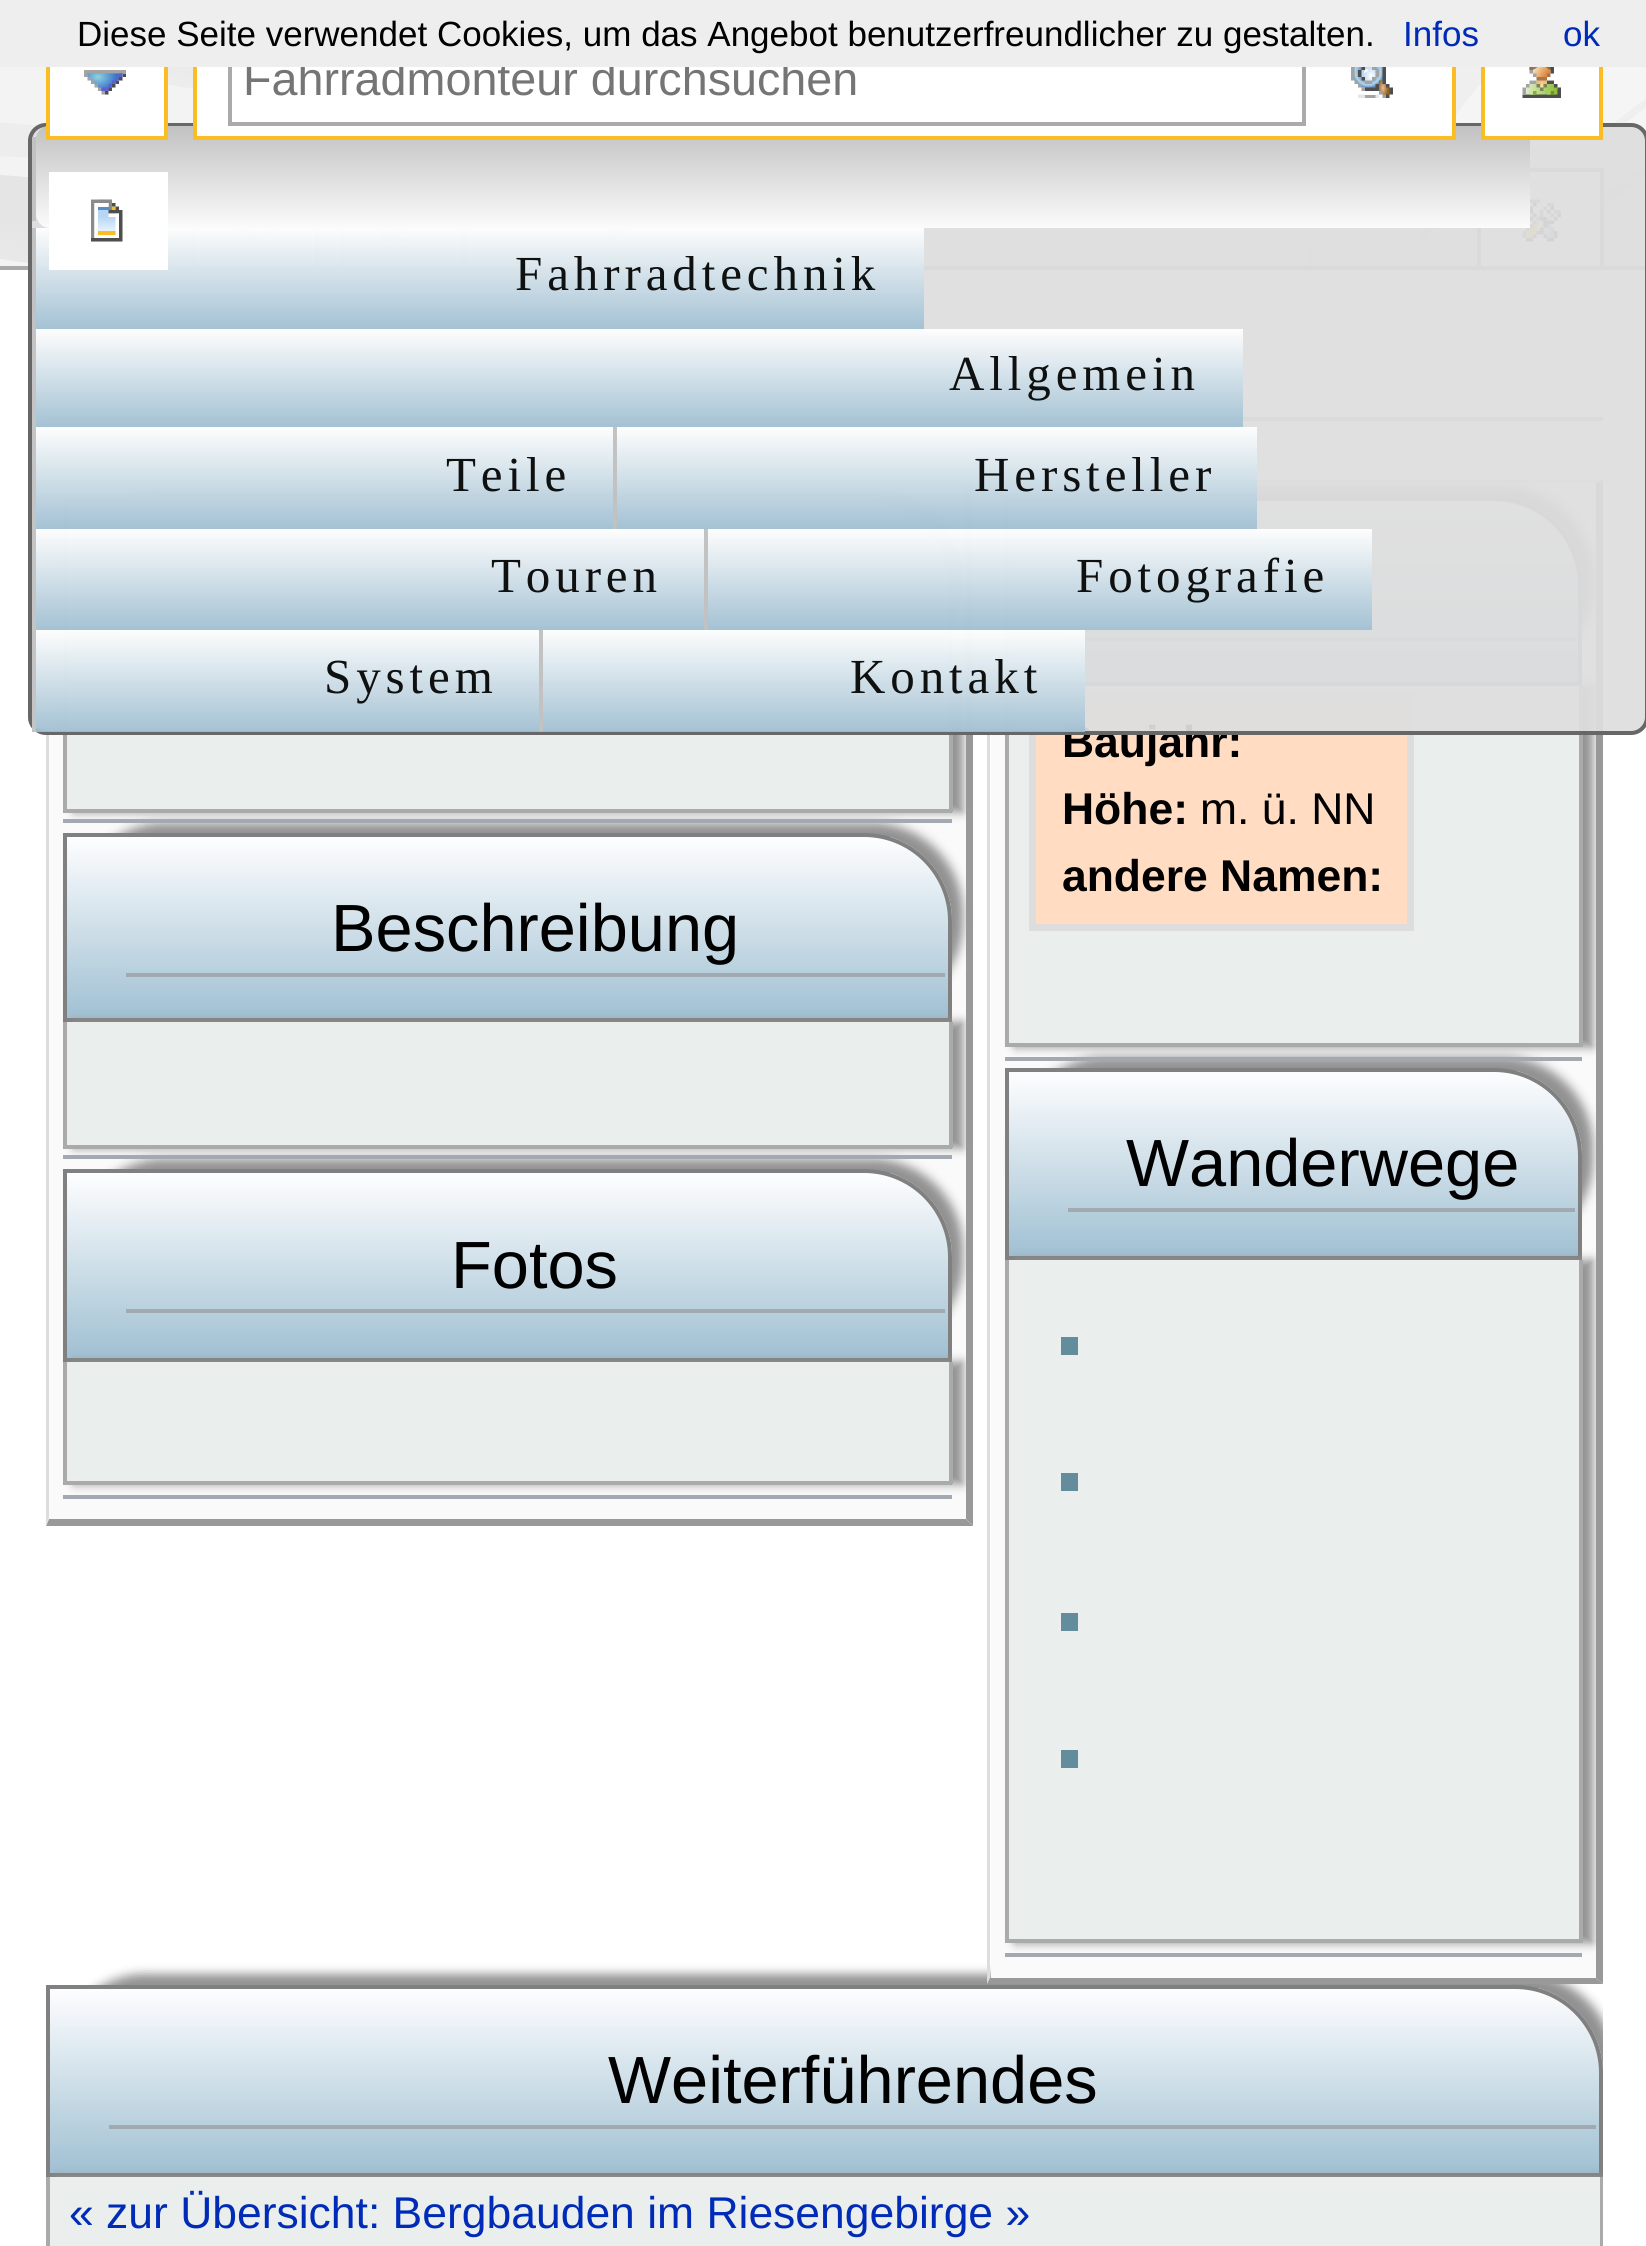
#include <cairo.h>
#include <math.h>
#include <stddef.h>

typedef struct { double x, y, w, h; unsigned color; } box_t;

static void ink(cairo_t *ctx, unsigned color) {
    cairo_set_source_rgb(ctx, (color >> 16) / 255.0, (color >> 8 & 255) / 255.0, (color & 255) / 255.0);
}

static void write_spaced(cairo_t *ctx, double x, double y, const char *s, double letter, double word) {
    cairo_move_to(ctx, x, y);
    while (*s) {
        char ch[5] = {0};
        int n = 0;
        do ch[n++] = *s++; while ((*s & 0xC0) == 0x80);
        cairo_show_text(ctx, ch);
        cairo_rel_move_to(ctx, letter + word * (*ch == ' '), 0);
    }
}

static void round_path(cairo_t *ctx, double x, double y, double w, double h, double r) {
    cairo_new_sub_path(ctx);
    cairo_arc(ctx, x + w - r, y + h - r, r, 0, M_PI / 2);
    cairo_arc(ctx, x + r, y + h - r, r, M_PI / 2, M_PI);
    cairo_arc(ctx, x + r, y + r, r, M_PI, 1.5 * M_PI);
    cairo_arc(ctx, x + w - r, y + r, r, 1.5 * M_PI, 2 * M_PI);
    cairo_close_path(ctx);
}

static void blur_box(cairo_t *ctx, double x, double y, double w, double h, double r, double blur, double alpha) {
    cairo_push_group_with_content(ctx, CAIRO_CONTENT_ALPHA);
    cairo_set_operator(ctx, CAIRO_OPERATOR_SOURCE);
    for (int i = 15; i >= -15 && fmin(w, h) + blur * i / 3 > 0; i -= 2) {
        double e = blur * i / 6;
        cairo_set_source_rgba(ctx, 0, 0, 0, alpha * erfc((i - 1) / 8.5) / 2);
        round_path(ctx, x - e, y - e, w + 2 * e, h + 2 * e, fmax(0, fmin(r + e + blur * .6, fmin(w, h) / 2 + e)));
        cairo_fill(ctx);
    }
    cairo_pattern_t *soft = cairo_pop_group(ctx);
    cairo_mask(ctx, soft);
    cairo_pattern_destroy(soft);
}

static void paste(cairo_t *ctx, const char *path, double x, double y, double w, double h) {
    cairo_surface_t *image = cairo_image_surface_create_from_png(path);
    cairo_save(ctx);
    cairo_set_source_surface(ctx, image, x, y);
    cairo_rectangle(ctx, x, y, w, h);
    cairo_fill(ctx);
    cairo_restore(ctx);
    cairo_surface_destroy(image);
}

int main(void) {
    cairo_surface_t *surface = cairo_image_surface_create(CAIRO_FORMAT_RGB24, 1646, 2246);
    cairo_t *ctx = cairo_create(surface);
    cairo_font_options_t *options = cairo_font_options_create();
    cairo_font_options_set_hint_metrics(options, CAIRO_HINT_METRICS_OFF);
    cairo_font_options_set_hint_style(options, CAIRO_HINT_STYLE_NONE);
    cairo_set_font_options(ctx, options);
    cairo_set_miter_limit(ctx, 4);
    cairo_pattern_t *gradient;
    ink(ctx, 0xFFFFFF);
    cairo_paint(ctx);
    paste(ctx, "media/1.png", 0, 67, 1646, 199);
    {
        static const box_t items[] = {
            {46, 168, 126, 4, 0xFABD23},
            {168, 168, 4, 102, 0xFABD23},
            {46, 168, 4, 102, 0xFABD23},
            {193, 168, 126, 4, 0xAAAAAA},
            {315, 168, 4, 102, 0xAAAAAA},
            {193, 168, 4, 102, 0xAAAAAA},
            {196, 172, 119, 94, 0xFBFBFB},
        };
        for (size_t i = 0; i < sizeof items / sizeof *items; i++) {
            ink(ctx, items[i].color);
            cairo_rectangle(ctx, items[i].x, items[i].y, items[i].w, items[i].h);
            cairo_fill(ctx);
        }
    }
    paste(ctx, "media/6.png", 234, 203, 43, 42);
    {
        static const box_t items[] = {
            {340, 168, 126, 4, 0xAAAAAA},
            {462, 168, 4, 102, 0xAAAAAA},
            {340, 168, 4, 102, 0xAAAAAA},
            {343, 172, 119, 94, 0xFBFBFB},
        };
        for (size_t i = 0; i < sizeof items / sizeof *items; i++) {
            ink(ctx, items[i].color);
            cairo_rectangle(ctx, items[i].x, items[i].y, items[i].w, items[i].h);
            cairo_fill(ctx);
        }
    }
    paste(ctx, "media/7.png", 381, 199, 43, 43);
    paste(ctx, "media/8.png", 609, 199, 25, 43);
    {
        static const box_t items[] = {
            {1477, 168, 126, 4, 0xAAAAAA},
            {1600, 168, 4, 102, 0xAAAAAA},
            {1477, 168, 4, 102, 0xAAAAAA},
            {1481, 172, 119, 94, 0xFBFBFB},
        };
        for (size_t i = 0; i < sizeof items / sizeof *items; i++) {
            ink(ctx, items[i].color);
            cairo_rectangle(ctx, items[i].x, items[i].y, items[i].w, items[i].h);
            cairo_fill(ctx);
        }
    }
    paste(ctx, "media/9.png", 1519, 199, 42, 43);
    {
        static const box_t items[] = {
            {0, 266, 1646, 4, 0xAAAAAA},
            {46, 417, 1557, 4, 0xA2A9B1},
            {49, 483, 917, 1036, 0xFAFAFA},
        };
        for (size_t i = 0; i < sizeof items / sizeof *items; i++) {
            ink(ctx, items[i].color);
            cairo_rectangle(ctx, items[i].x, items[i].y, items[i].w, items[i].h);
            cairo_fill(ctx);
        }
    }
    ink(ctx, 0xDDDDDD);
    cairo_new_path(ctx);
    cairo_move_to(ctx, 46, 480);
    cairo_line_to(ctx, 973, 480);
    cairo_line_to(ctx, 966, 483);
    cairo_line_to(ctx, 49, 483);
    cairo_close_path(ctx);
    cairo_fill(ctx);
    ink(ctx, 0x999999);
    cairo_new_path(ctx);
    cairo_move_to(ctx, 973, 480);
    cairo_line_to(ctx, 973, 1526);
    cairo_line_to(ctx, 966, 1519);
    cairo_line_to(ctx, 966, 483);
    cairo_close_path(ctx);
    cairo_fill(ctx);
    cairo_new_path(ctx);
    cairo_move_to(ctx, 973, 1526);
    cairo_line_to(ctx, 46, 1526);
    cairo_line_to(ctx, 49, 1519);
    cairo_line_to(ctx, 966, 1519);
    cairo_close_path(ctx);
    cairo_fill(ctx);
    ink(ctx, 0xDDDDDD);
    cairo_new_path(ctx);
    cairo_move_to(ctx, 46, 1526);
    cairo_line_to(ctx, 46, 480);
    cairo_line_to(ctx, 49, 483);
    cairo_line_to(ctx, 49, 1519);
    cairo_close_path(ctx);
    cairo_fill(ctx);
    ink(ctx, 0x919191);
    blur_box(ctx, 74, 487, 889, 189, 88, 5, 1);
    cairo_save(ctx);
    cairo_new_path(ctx);
    cairo_move_to(ctx, 63, 497);
    cairo_line_to(ctx, 864, 497);
    cairo_curve_to(ctx, 912.5, 497, 952, 536.5, 952, 585);
    cairo_line_to(ctx, 952, 686);
    cairo_line_to(ctx, 63, 686);
    cairo_close_path(ctx);
    cairo_clip(ctx);
    gradient = cairo_pattern_create_linear(508, 501, 508, 683);
    cairo_pattern_add_color_stop_rgba(gradient, 0, 0.996, 0.996, 1, 1);
    cairo_pattern_add_color_stop_rgba(gradient, 1, 0.627, 0.753, 0.824, 1);
    cairo_set_source(ctx, gradient);
    cairo_pattern_destroy(gradient);
    cairo_rectangle(ctx, 67, 501, 885, 181);
    cairo_fill(ctx);
    cairo_restore(ctx);
    cairo_new_path(ctx);
    cairo_move_to(ctx, 65, 499);
    cairo_line_to(ctx, 864, 499);
    cairo_curve_to(ctx, 911.5, 499, 950, 537.5, 950, 585);
    cairo_line_to(ctx, 950, 684);
    cairo_line_to(ctx, 65, 684);
    cairo_close_path(ctx);
    ink(ctx, 0x808080);
    cairo_set_line_width(ctx, 4);
    cairo_stroke(ctx);
    ink(ctx, 0xA2A9B1);
    cairo_rectangle(ctx, 126, 637, 819, 4);
    cairo_fill(ctx);
    ink(ctx, 0x919191);
    blur_box(ctx, 74, 686, 889, 126, 0, 5, 1);
    {
        static const box_t items[] = {
            {67, 686, 882, 123, 0xEAEEED},
            {949, 686, 4, 126, 0xAAAAAA},
            {63, 809, 889, 4, 0xAAAAAA},
            {63, 686, 4, 126, 0xAAAAAA},
        };
        for (size_t i = 0; i < sizeof items / sizeof *items; i++) {
            ink(ctx, items[i].color);
            cairo_rectangle(ctx, items[i].x, items[i].y, items[i].w, items[i].h);
            cairo_fill(ctx);
        }
    }
    cairo_save(ctx);
    cairo_rectangle(ctx, 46, 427, 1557, 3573);
    cairo_clip(ctx);
    ink(ctx, 0x919191);
    blur_box(ctx, 56, 1974, 1558, 193, 88, 5, 1);
    cairo_restore(ctx);
    ink(ctx, 0xFAFAFA);
    cairo_rectangle(ctx, 991, 483, 605, 1495);
    cairo_fill(ctx);
    ink(ctx, 0xDDDDDD);
    cairo_new_path(ctx);
    cairo_move_to(ctx, 987, 480);
    cairo_line_to(ctx, 1603, 480);
    cairo_line_to(ctx, 1596, 483);
    cairo_line_to(ctx, 990, 483);
    cairo_close_path(ctx);
    cairo_fill(ctx);
    ink(ctx, 0x999999);
    cairo_new_path(ctx);
    cairo_move_to(ctx, 1603, 480);
    cairo_line_to(ctx, 1603, 1984);
    cairo_line_to(ctx, 1596, 1978);
    cairo_line_to(ctx, 1596, 483);
    cairo_close_path(ctx);
    cairo_fill(ctx);
    cairo_new_path(ctx);
    cairo_move_to(ctx, 1603, 1984);
    cairo_line_to(ctx, 987, 1984);
    cairo_line_to(ctx, 990, 1978);
    cairo_line_to(ctx, 1596, 1978);
    cairo_close_path(ctx);
    cairo_fill(ctx);
    ink(ctx, 0xDDDDDD);
    cairo_new_path(ctx);
    cairo_move_to(ctx, 987, 1984);
    cairo_line_to(ctx, 987, 480);
    cairo_line_to(ctx, 990, 483);
    cairo_line_to(ctx, 990, 1978);
    cairo_close_path(ctx);
    cairo_fill(ctx);
    ink(ctx, 0x919191);
    blur_box(ctx, 1015, 487, 578, 189, 88, 5, 1);
    cairo_save(ctx);
    cairo_new_path(ctx);
    cairo_move_to(ctx, 1005, 497);
    cairo_line_to(ctx, 1494, 497);
    cairo_curve_to(ctx, 1542.5, 497, 1582, 536.5, 1582, 585);
    cairo_line_to(ctx, 1582, 686);
    cairo_line_to(ctx, 1005, 686);
    cairo_close_path(ctx);
    cairo_clip(ctx);
    gradient = cairo_pattern_create_linear(1293, 501, 1293, 683);
    cairo_pattern_add_color_stop_rgba(gradient, 0, 0.996, 0.996, 1, 1);
    cairo_pattern_add_color_stop_rgba(gradient, 1, 0.627, 0.753, 0.824, 1);
    cairo_set_source(ctx, gradient);
    cairo_pattern_destroy(gradient);
    cairo_rectangle(ctx, 1009, 501, 573, 181);
    cairo_fill(ctx);
    cairo_restore(ctx);
    cairo_new_path(ctx);
    cairo_move_to(ctx, 1007, 499);
    cairo_line_to(ctx, 1494, 499);
    cairo_curve_to(ctx, 1541.5, 499, 1580, 537.5, 1580, 585);
    cairo_line_to(ctx, 1580, 684);
    cairo_line_to(ctx, 1007, 684);
    cairo_close_path(ctx);
    ink(ctx, 0x808080);
    cairo_stroke(ctx);
    ink(ctx, 0xA2A9B1);
    cairo_rectangle(ctx, 1068, 637, 507, 4);
    cairo_fill(ctx);
    ink(ctx, 0x919191);
    blur_box(ctx, 1015, 686, 578, 361, 0, 5, 1);
    {
        static const box_t items[] = {
            {1009, 686, 570, 357, 0xEAEEED},
            {1579, 686, 4, 361, 0xAAAAAA},
            {1005, 1043, 577, 4, 0xAAAAAA},
            {1005, 686, 4, 361, 0xAAAAAA},
        };
        for (size_t i = 0; i < sizeof items / sizeof *items; i++) {
            ink(ctx, items[i].color);
            cairo_rectangle(ctx, items[i].x, items[i].y, items[i].w, items[i].h);
            cairo_fill(ctx);
        }
    }
    ink(ctx, 0xFFDCC2);
    cairo_rectangle(ctx, 1032.5, 696.5, 378, 231);
    cairo_fill_preserve(ctx);
    ink(ctx, 0xDDDDDD);
    cairo_set_line_width(ctx, 7);
    cairo_stroke(ctx);
    cairo_select_font_face(ctx, "Liberation Sans", CAIRO_FONT_SLANT_NORMAL, CAIRO_FONT_WEIGHT_BOLD);
    cairo_set_font_size(ctx, 44.45);
    ink(ctx, 0x000000);
    cairo_move_to(ctx, 1062, 757);
    cairo_show_text(ctx, "Baujahr:");
    cairo_set_source_rgba(ctx, 0.871, 0.871, 0.871, 0.93);
    round_path(ctx, 28, 123, 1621, 612, 18);
    cairo_fill(ctx);
    round_path(ctx, 30, 125, 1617, 608, 16);
    cairo_set_source_rgba(ctx, 0.373, 0.373, 0.373, 0.93);
    cairo_set_line_width(ctx, 4);
    cairo_stroke(ctx);
    cairo_set_source_rgba(ctx, 0.757, 0.757, 0.757, 0.93);
    cairo_new_path(ctx);
    cairo_move_to(ctx, 49, 126);
    cairo_line_to(ctx, 1530, 126);
    cairo_line_to(ctx, 1530, 228);
    cairo_line_to(ctx, 49, 228);
    cairo_curve_to(ctx, 41, 228, 35, 220, 35, 210);
    cairo_line_to(ctx, 35, 144);
    cairo_curve_to(ctx, 35, 134, 41, 126, 49, 126);
    cairo_close_path(ctx);
    cairo_fill(ctx);
    gradient = cairo_pattern_create_linear(782, 126, 782, 228);
    cairo_pattern_add_color_stop_rgba(gradient, 0, 0.757, 0.757, 0.757, 0.93);
    cairo_pattern_add_color_stop_rgba(gradient, 1, 1, 1, 1, 0.93);
    cairo_set_source(ctx, gradient);
    cairo_pattern_destroy(gradient);
    cairo_new_path(ctx);
    cairo_move_to(ctx, 49, 126);
    cairo_line_to(ctx, 1530, 126);
    cairo_line_to(ctx, 1530, 228);
    cairo_line_to(ctx, 49, 228);
    cairo_curve_to(ctx, 41, 228, 35, 220, 35, 210);
    cairo_line_to(ctx, 35, 144);
    cairo_curve_to(ctx, 35, 134, 41, 126, 49, 126);
    cairo_close_path(ctx);
    cairo_fill(ctx);
    ink(ctx, 0xFFFFFF);
    cairo_rectangle(ctx, 50, 67, 114, 69);
    cairo_fill(ctx);
    paste(ctx, "media/2.png", 84, 70, 42, 25);
    cairo_rectangle(ctx, 48, 20, 118, 118);
    ink(ctx, 0xFABD23);
    cairo_stroke(ctx);
    ink(ctx, 0xFFFFFF);
    cairo_rectangle(ctx, 197, 67, 1255, 69);
    cairo_fill(ctx);
    cairo_rectangle(ctx, 195, 20, 1259, 118);
    ink(ctx, 0xFABD23);
    cairo_stroke(ctx);
    cairo_rectangle(ctx, 230, 34, 1074, 90);
    ink(ctx, 0xAAAAAA);
    cairo_stroke(ctx);
    cairo_select_font_face(ctx, "Liberation Sans", CAIRO_FONT_SLANT_NORMAL, CAIRO_FONT_WEIGHT_NORMAL);
    cairo_set_font_size(ctx, 46.7);
    ink(ctx, 0x757575);
    cairo_move_to(ctx, 243, 95);
    cairo_show_text(ctx, "Fahrradmonteur durchsuchen");
    ink(ctx, 0xFFFFFF);
    cairo_rectangle(ctx, 1485, 67, 114, 69);
    cairo_fill(ctx);
    paste(ctx, "media/4.png", 1522, 67, 39, 31);
    cairo_rectangle(ctx, 1483, 20, 118, 118);
    ink(ctx, 0xFABD23);
    cairo_stroke(ctx);
    ink(ctx, 0xEEEEEE);
    cairo_rectangle(ctx, 0, 0, 1646, 67);
    cairo_fill(ctx);
    cairo_set_font_size(ctx, 35);
    ink(ctx, 0x000000);
    cairo_move_to(ctx, 77, 46);
    cairo_show_text(ctx, "Diese Seite verwendet Cookies, um das Angebot benutzerfreundlicher zu gestalten.");
    ink(ctx, 0x002BB8);
    cairo_move_to(ctx, 1403, 46);
    cairo_show_text(ctx, "Infos");
    cairo_move_to(ctx, 1563, 46);
    cairo_show_text(ctx, "ok");
    paste(ctx, "media/3.png", 1351, 67, 42, 31);
    gradient = cairo_pattern_create_linear(480, 227, 480, 329);
    cairo_pattern_add_color_stop_rgba(gradient, 0, 1, 1, 1, 0.93);
    cairo_pattern_add_color_stop_rgba(gradient, 1, 0.624, 0.749, 0.824, 0.93);
    cairo_set_source(ctx, gradient);
    cairo_pattern_destroy(gradient);
    cairo_rectangle(ctx, 35, 228, 889, 101);
    cairo_fill(ctx);
    ink(ctx, 0xFFFFFF);
    cairo_rectangle(ctx, 49, 172, 119, 98);
    cairo_fill(ctx);
    paste(ctx, "media/5.png", 91, 199, 32, 43);
    cairo_set_source_rgba(ctx, 0.753, 0.753, 0.753, 0.93);
    cairo_rectangle(ctx, 32, 137, 4, 84);
    cairo_fill(ctx);
    cairo_rectangle(ctx, 32, 228, 4, 101);
    cairo_fill(ctx);
    cairo_select_font_face(ctx, "Liberation Serif", CAIRO_FONT_SLANT_NORMAL, CAIRO_FONT_WEIGHT_NORMAL);
    cairo_set_font_size(ctx, 49);
    ink(ctx, 0x0F1010);
    write_spaced(ctx, 515, 290, "Fahrradtechnik", 4.9, 0);
    gradient = cairo_pattern_create_linear(639, 329, 639, 427);
    cairo_pattern_add_color_stop_rgba(gradient, 0, 1, 1, 1, 0.93);
    cairo_pattern_add_color_stop_rgba(gradient, 1, 0.624, 0.749, 0.824, 0.93);
    cairo_set_source(ctx, gradient);
    cairo_pattern_destroy(gradient);
    cairo_rectangle(ctx, 36, 329, 1207, 98);
    cairo_fill(ctx);
    ink(ctx, 0xC4C4C4);
    cairo_rectangle(ctx, 32, 329, 4, 403);
    cairo_fill(ctx);
    ink(ctx, 0x0F1010);
    write_spaced(ctx, 949, 390, "Allgemein", 4.9, 0);
    gradient = cairo_pattern_create_linear(324, 427, 324, 529);
    cairo_pattern_add_color_stop_rgba(gradient, 0, 1, 1, 1, 0.93);
    cairo_pattern_add_color_stop_rgba(gradient, 1, 0.624, 0.749, 0.824, 0.93);
    cairo_set_source(ctx, gradient);
    cairo_pattern_destroy(gradient);
    cairo_rectangle(ctx, 36, 427, 577, 102);
    cairo_fill(ctx);
    ink(ctx, 0x0F1010);
    write_spaced(ctx, 446, 491, "Teile", 4.9, 0);
    gradient = cairo_pattern_create_linear(936, 427, 936, 529);
    cairo_pattern_add_color_stop_rgba(gradient, 0, 1, 1, 1, 0.93);
    cairo_pattern_add_color_stop_rgba(gradient, 1, 0.624, 0.749, 0.824, 0.93);
    cairo_set_source(ctx, gradient);
    cairo_pattern_destroy(gradient);
    cairo_rectangle(ctx, 616, 427, 641, 102);
    cairo_fill(ctx);
    cairo_set_source_rgba(ctx, 0.753, 0.753, 0.753, 0.93);
    cairo_rectangle(ctx, 613, 427, 4, 102);
    cairo_fill(ctx);
    ink(ctx, 0x0F1010);
    write_spaced(ctx, 974, 491, "Hersteller", 4.9, 0);
    gradient = cairo_pattern_create_linear(369, 529, 369, 630);
    cairo_pattern_add_color_stop_rgba(gradient, 0, 1, 1, 1, 0.93);
    cairo_pattern_add_color_stop_rgba(gradient, 1, 0.624, 0.749, 0.824, 0.93);
    cairo_set_source(ctx, gradient);
    cairo_pattern_destroy(gradient);
    cairo_rectangle(ctx, 36, 529, 668, 101);
    cairo_fill(ctx);
    ink(ctx, 0x0F1010);
    write_spaced(ctx, 491, 592, "Touren", 4.9, 0);
    gradient = cairo_pattern_create_linear(1040, 529, 1040, 630);
    cairo_pattern_add_color_stop_rgba(gradient, 0, 1, 1, 1, 0.93);
    cairo_pattern_add_color_stop_rgba(gradient, 1, 0.624, 0.749, 0.824, 0.93);
    cairo_set_source(ctx, gradient);
    cairo_pattern_destroy(gradient);
    cairo_rectangle(ctx, 707, 529, 665, 101);
    cairo_fill(ctx);
    cairo_set_source_rgba(ctx, 0.753, 0.753, 0.753, 0.93);
    cairo_rectangle(ctx, 704, 529, 4, 101);
    cairo_fill(ctx);
    ink(ctx, 0x0F1010);
    write_spaced(ctx, 1076, 592, "Fotografie", 4.9, 0);
    gradient = cairo_pattern_create_linear(287, 630, 287, 732);
    cairo_pattern_add_color_stop_rgba(gradient, 0, 1, 1, 1, 0.93);
    cairo_pattern_add_color_stop_rgba(gradient, 1, 0.624, 0.749, 0.824, 0.93);
    cairo_set_source(ctx, gradient);
    cairo_pattern_destroy(gradient);
    cairo_rectangle(ctx, 36, 630, 503, 102);
    cairo_fill(ctx);
    ink(ctx, 0x0F1010);
    write_spaced(ctx, 324, 693, "System", 4.9, 0);
    gradient = cairo_pattern_create_linear(814, 630, 814, 732);
    cairo_pattern_add_color_stop_rgba(gradient, 0, 1, 1, 1, 0.93);
    cairo_pattern_add_color_stop_rgba(gradient, 1, 0.624, 0.749, 0.824, 0.93);
    cairo_set_source(ctx, gradient);
    cairo_pattern_destroy(gradient);
    cairo_rectangle(ctx, 543, 630, 542, 102);
    cairo_fill(ctx);
    cairo_set_source_rgba(ctx, 0.753, 0.753, 0.753, 0.93);
    cairo_rectangle(ctx, 539, 630, 4, 102);
    cairo_fill(ctx);
    ink(ctx, 0x0F1010);
    write_spaced(ctx, 850, 693, "Kontakt", 4.9, 0);
    ink(ctx, 0x919191);
    blur_box(ctx, 74, 823, 889, 189, 88, 5, 1);
    ink(ctx, 0xA2A9B1);
    cairo_rectangle(ctx, 63, 819, 889, 4);
    cairo_fill(ctx);
    cairo_save(ctx);
    cairo_new_path(ctx);
    cairo_move_to(ctx, 63, 833);
    cairo_line_to(ctx, 864, 833);
    cairo_curve_to(ctx, 912.5, 833, 952, 872.5, 952, 921);
    cairo_line_to(ctx, 952, 1022);
    cairo_line_to(ctx, 63, 1022);
    cairo_close_path(ctx);
    cairo_clip(ctx);
    gradient = cairo_pattern_create_linear(508, 837, 508, 1019);
    cairo_pattern_add_color_stop_rgba(gradient, 0, 0.996, 0.996, 1, 1);
    cairo_pattern_add_color_stop_rgba(gradient, 1, 0.627, 0.753, 0.824, 1);
    cairo_set_source(ctx, gradient);
    cairo_pattern_destroy(gradient);
    cairo_rectangle(ctx, 67, 837, 885, 181);
    cairo_fill(ctx);
    cairo_restore(ctx);
    cairo_new_path(ctx);
    cairo_move_to(ctx, 65, 835);
    cairo_line_to(ctx, 864, 835);
    cairo_curve_to(ctx, 911.5, 835, 950, 873.5, 950, 921);
    cairo_line_to(ctx, 950, 1020);
    cairo_line_to(ctx, 65, 1020);
    cairo_close_path(ctx);
    ink(ctx, 0x808080);
    cairo_stroke(ctx);
    ink(ctx, 0xA2A9B1);
    cairo_rectangle(ctx, 126, 973, 819, 4);
    cairo_fill(ctx);
    cairo_select_font_face(ctx, "Liberation Sans", CAIRO_FONT_SLANT_NORMAL, CAIRO_FONT_WEIGHT_NORMAL);
    cairo_set_font_size(ctx, 66.75);
    ink(ctx, 0x000000);
    cairo_move_to(ctx, 331, 951);
    cairo_show_text(ctx, "Beschreibung");
    ink(ctx, 0x919191);
    blur_box(ctx, 74, 1022, 889, 126, 0, 5, 1);
    {
        static const box_t items[] = {
            {67, 1022, 882, 123, 0xEAEEED},
            {949, 1022, 4, 126, 0xAAAAAA},
            {63, 1145, 889, 4, 0xAAAAAA},
            {63, 1022, 4, 126, 0xAAAAAA},
        };
        for (size_t i = 0; i < sizeof items / sizeof *items; i++) {
            ink(ctx, items[i].color);
            cairo_rectangle(ctx, items[i].x, items[i].y, items[i].w, items[i].h);
            cairo_fill(ctx);
        }
    }
    ink(ctx, 0x919191);
    blur_box(ctx, 74, 1159, 889, 192, 88, 5, 1);
    ink(ctx, 0xA2A9B1);
    cairo_rectangle(ctx, 63, 1155, 889, 4);
    cairo_fill(ctx);
    cairo_save(ctx);
    cairo_new_path(ctx);
    cairo_move_to(ctx, 63, 1169);
    cairo_line_to(ctx, 864, 1169);
    cairo_curve_to(ctx, 912.5, 1169, 952, 1208.5, 952, 1257);
    cairo_line_to(ctx, 952, 1362);
    cairo_line_to(ctx, 63, 1362);
    cairo_close_path(ctx);
    cairo_clip(ctx);
    gradient = cairo_pattern_create_linear(508, 1173, 508, 1358);
    cairo_pattern_add_color_stop_rgba(gradient, 0, 0.996, 0.996, 1, 1);
    cairo_pattern_add_color_stop_rgba(gradient, 1, 0.627, 0.753, 0.824, 1);
    cairo_set_source(ctx, gradient);
    cairo_pattern_destroy(gradient);
    cairo_rectangle(ctx, 67, 1173, 885, 185);
    cairo_fill(ctx);
    cairo_restore(ctx);
    cairo_new_path(ctx);
    cairo_move_to(ctx, 65, 1171);
    cairo_line_to(ctx, 864, 1171);
    cairo_curve_to(ctx, 911.5, 1171, 950, 1209.5, 950, 1257);
    cairo_line_to(ctx, 950, 1360);
    cairo_line_to(ctx, 65, 1360);
    cairo_close_path(ctx);
    ink(ctx, 0x808080);
    cairo_stroke(ctx);
    ink(ctx, 0xA2A9B1);
    cairo_rectangle(ctx, 126, 1309, 819, 4);
    cairo_fill(ctx);
    ink(ctx, 0x000000);
    cairo_move_to(ctx, 451, 1288);
    cairo_show_text(ctx, "Fotos");
    ink(ctx, 0x919191);
    blur_box(ctx, 74, 1362, 889, 122, 0, 5, 1);
    {
        static const box_t items[] = {
            {67, 1362, 882, 119, 0xEAEEED},
            {949, 1362, 4, 122, 0xAAAAAA},
            {63, 1481, 889, 4, 0xAAAAAA},
            {63, 1362, 4, 122, 0xAAAAAA},
            {63, 1495, 889, 4, 0xA2A9B1},
        };
        for (size_t i = 0; i < sizeof items / sizeof *items; i++) {
            ink(ctx, items[i].color);
            cairo_rectangle(ctx, items[i].x, items[i].y, items[i].w, items[i].h);
            cairo_fill(ctx);
        }
    }
    cairo_select_font_face(ctx, "Liberation Sans", CAIRO_FONT_SLANT_NORMAL, CAIRO_FONT_WEIGHT_BOLD);
    cairo_set_font_size(ctx, 44.45);
    ink(ctx, 0x000000);
    cairo_move_to(ctx, 1062, 824);
    cairo_show_text(ctx, "Höhe:");
    cairo_select_font_face(ctx, "Liberation Sans", CAIRO_FONT_SLANT_NORMAL, CAIRO_FONT_WEIGHT_NORMAL);
    cairo_move_to(ctx, 1200, 824);
    cairo_show_text(ctx, "m. ü. NN");
    cairo_select_font_face(ctx, "Liberation Sans", CAIRO_FONT_SLANT_NORMAL, CAIRO_FONT_WEIGHT_BOLD);
    cairo_move_to(ctx, 1062, 891);
    cairo_show_text(ctx, "andere Namen:");
    ink(ctx, 0x919191);
    blur_box(ctx, 1015, 1057, 578, 193, 88, 5, 1);
    ink(ctx, 0xA2A9B1);
    cairo_rectangle(ctx, 1005, 1057, 577, 4);
    cairo_fill(ctx);
    cairo_save(ctx);
    cairo_new_path(ctx);
    cairo_move_to(ctx, 1005, 1068);
    cairo_line_to(ctx, 1494, 1068);
    cairo_curve_to(ctx, 1542.5, 1068, 1582, 1107.5, 1582, 1156);
    cairo_line_to(ctx, 1582, 1260);
    cairo_line_to(ctx, 1005, 1260);
    cairo_close_path(ctx);
    cairo_clip(ctx);
    gradient = cairo_pattern_create_linear(1293, 1071, 1293, 1257);
    cairo_pattern_add_color_stop_rgba(gradient, 0, 0.996, 0.996, 1, 1);
    cairo_pattern_add_color_stop_rgba(gradient, 1, 0.627, 0.753, 0.824, 1);
    cairo_set_source(ctx, gradient);
    cairo_pattern_destroy(gradient);
    cairo_rectangle(ctx, 1009, 1071, 573, 185);
    cairo_fill(ctx);
    cairo_restore(ctx);
    cairo_new_path(ctx);
    cairo_move_to(ctx, 1007, 1070);
    cairo_line_to(ctx, 1494, 1070);
    cairo_curve_to(ctx, 1541.5, 1070, 1580, 1108.5, 1580, 1156);
    cairo_line_to(ctx, 1580, 1258);
    cairo_line_to(ctx, 1007, 1258);
    cairo_close_path(ctx);
    ink(ctx, 0x808080);
    cairo_stroke(ctx);
    ink(ctx, 0xA2A9B1);
    cairo_rectangle(ctx, 1068, 1208, 507, 4);
    cairo_fill(ctx);
    cairo_select_font_face(ctx, "Liberation Sans", CAIRO_FONT_SLANT_NORMAL, CAIRO_FONT_WEIGHT_NORMAL);
    cairo_set_font_size(ctx, 66.75);
    ink(ctx, 0x000000);
    cairo_move_to(ctx, 1126, 1186);
    cairo_show_text(ctx, "Wanderwege");
    ink(ctx, 0x919191);
    blur_box(ctx, 1015, 1260, 578, 683, 0, 5, 1);
    {
        static const box_t items[] = {
            {1009, 1260, 570, 679, 0xEAEEED},
            {1579, 1260, 4, 683, 0xAAAAAA},
            {1005, 1939, 577, 4, 0xAAAAAA},
            {1005, 1260, 4, 683, 0xAAAAAA},
            {1061, 1337, 17, 18, 0x638C9C},
            {1061, 1473, 17, 18, 0x638C9C},
            {1061, 1613, 17, 18, 0x638C9C},
            {1061, 1750, 17, 18, 0x638C9C},
            {1005, 1953, 577, 4, 0xA2A9B1},
        };
        for (size_t i = 0; i < sizeof items / sizeof *items; i++) {
            ink(ctx, items[i].color);
            cairo_rectangle(ctx, items[i].x, items[i].y, items[i].w, items[i].h);
            cairo_fill(ctx);
        }
    }
    cairo_save(ctx);
    cairo_new_path(ctx);
    cairo_move_to(ctx, 46, 1985);
    cairo_line_to(ctx, 1515, 1985);
    cairo_curve_to(ctx, 1563.5, 1985, 1603, 2024.5, 1603, 2073);
    cairo_line_to(ctx, 1603, 2177);
    cairo_line_to(ctx, 46, 2177);
    cairo_close_path(ctx);
    cairo_clip(ctx);
    gradient = cairo_pattern_create_linear(824, 1988, 824, 2174);
    cairo_pattern_add_color_stop_rgba(gradient, 0, 0.996, 0.996, 1, 1);
    cairo_pattern_add_color_stop_rgba(gradient, 1, 0.627, 0.753, 0.824, 1);
    cairo_set_source(ctx, gradient);
    cairo_pattern_destroy(gradient);
    cairo_rectangle(ctx, 50, 1988, 1553, 185);
    cairo_fill(ctx);
    cairo_restore(ctx);
    cairo_new_path(ctx);
    cairo_move_to(ctx, 48, 1987);
    cairo_line_to(ctx, 1515, 1987);
    cairo_curve_to(ctx, 1562.5, 1987, 1601, 2025.5, 1601, 2073);
    cairo_line_to(ctx, 1601, 2175);
    cairo_line_to(ctx, 48, 2175);
    cairo_close_path(ctx);
    ink(ctx, 0x808080);
    cairo_stroke(ctx);
    ink(ctx, 0xA2A9B1);
    cairo_rectangle(ctx, 109, 2125, 1487, 4);
    cairo_fill(ctx);
    ink(ctx, 0x000000);
    cairo_move_to(ctx, 608, 2103);
    cairo_show_text(ctx, "Weiterführendes");
    cairo_save(ctx);
    cairo_rectangle(ctx, 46, 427, 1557, 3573);
    cairo_clip(ctx);
    ink(ctx, 0x919191);
    blur_box(ctx, 56, 2177, 1558, 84, 0, 5, 1);
    cairo_restore(ctx);
    {
        static const box_t items[] = {
            {50, 2177, 1550, 69, 0xEAEEED},
            {1600, 2177, 3, 69, 0xAAAAAA},
            {46, 2177, 4, 69, 0xAAAAAA},
        };
        for (size_t i = 0; i < sizeof items / sizeof *items; i++) {
            ink(ctx, items[i].color);
            cairo_rectangle(ctx, items[i].x, items[i].y, items[i].w, items[i].h);
            cairo_fill(ctx);
        }
    }
    cairo_set_font_size(ctx, 44.45);
    ink(ctx, 0x002BB8);
    cairo_move_to(ctx, 69, 2228);
    cairo_show_text(ctx, "« zur Übersicht: Bergbauden im Riesengebirge »");
    cairo_surface_write_to_png(surface, "image.png");
    cairo_font_options_destroy(options);
    cairo_destroy(ctx);
    cairo_surface_destroy(surface);
    return 0;
}
